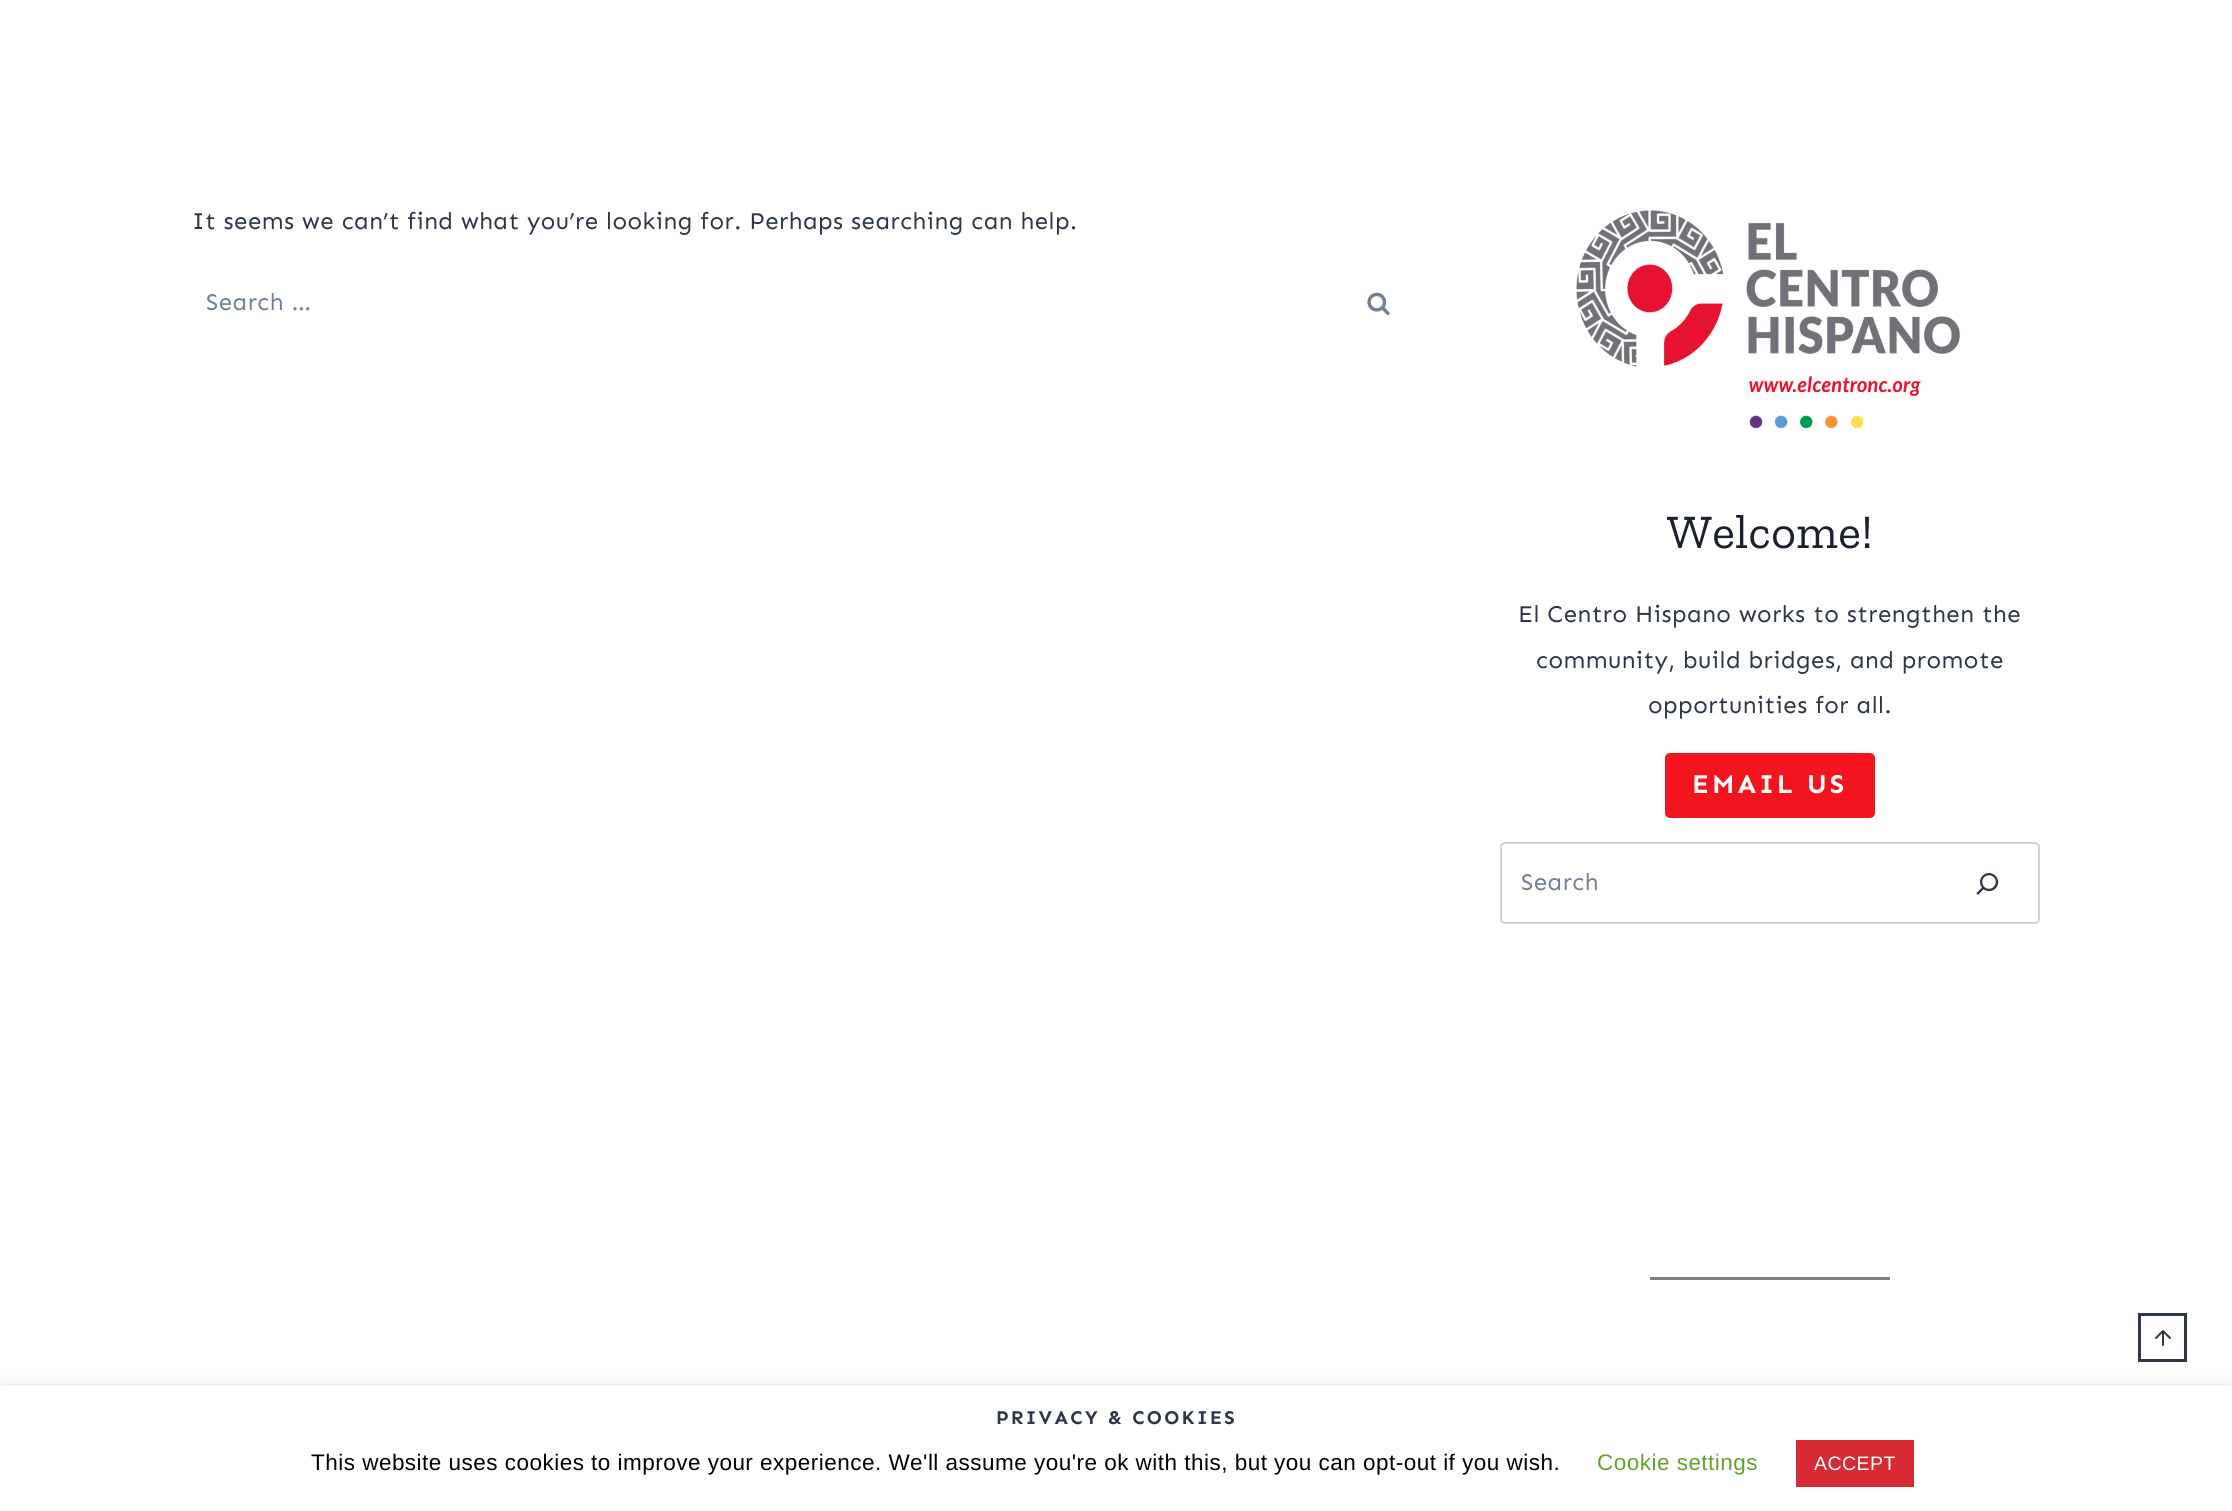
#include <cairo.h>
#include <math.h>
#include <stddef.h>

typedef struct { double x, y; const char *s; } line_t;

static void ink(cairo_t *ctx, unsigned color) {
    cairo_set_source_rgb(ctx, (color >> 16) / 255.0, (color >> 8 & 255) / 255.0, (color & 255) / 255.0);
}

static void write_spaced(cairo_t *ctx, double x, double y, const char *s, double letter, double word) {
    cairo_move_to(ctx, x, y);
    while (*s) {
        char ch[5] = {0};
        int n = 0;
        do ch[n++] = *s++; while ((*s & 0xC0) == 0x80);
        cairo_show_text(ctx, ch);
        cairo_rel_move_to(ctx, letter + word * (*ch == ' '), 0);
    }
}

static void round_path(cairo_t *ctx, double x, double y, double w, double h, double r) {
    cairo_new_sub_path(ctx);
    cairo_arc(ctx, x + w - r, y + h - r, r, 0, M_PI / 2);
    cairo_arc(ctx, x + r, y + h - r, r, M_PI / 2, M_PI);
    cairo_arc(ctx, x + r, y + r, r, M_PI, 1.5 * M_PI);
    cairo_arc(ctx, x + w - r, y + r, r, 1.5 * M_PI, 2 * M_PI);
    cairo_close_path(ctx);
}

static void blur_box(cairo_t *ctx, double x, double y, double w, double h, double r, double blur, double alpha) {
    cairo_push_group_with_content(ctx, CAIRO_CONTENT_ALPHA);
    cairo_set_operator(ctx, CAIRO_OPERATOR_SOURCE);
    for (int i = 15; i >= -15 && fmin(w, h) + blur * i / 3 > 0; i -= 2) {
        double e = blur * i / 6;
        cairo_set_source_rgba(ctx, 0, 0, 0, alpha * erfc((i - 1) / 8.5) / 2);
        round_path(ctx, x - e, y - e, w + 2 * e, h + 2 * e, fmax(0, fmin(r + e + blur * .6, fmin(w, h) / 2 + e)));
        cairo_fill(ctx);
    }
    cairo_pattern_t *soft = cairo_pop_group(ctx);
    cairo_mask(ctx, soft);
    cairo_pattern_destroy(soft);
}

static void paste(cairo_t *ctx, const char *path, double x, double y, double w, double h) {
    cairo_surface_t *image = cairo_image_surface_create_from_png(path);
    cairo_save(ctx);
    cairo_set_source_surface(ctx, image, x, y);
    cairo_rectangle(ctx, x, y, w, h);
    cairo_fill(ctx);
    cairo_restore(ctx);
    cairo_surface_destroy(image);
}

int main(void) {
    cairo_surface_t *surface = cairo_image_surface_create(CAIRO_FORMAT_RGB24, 2232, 1511);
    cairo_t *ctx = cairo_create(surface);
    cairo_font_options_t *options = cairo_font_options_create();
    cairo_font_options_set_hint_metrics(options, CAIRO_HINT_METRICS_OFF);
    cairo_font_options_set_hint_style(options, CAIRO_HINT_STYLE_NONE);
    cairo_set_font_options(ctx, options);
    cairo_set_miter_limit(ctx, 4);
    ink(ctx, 0xFFFFFF);
    cairo_paint(ctx);
    cairo_select_font_face(ctx, "Sen", CAIRO_FONT_SLANT_NORMAL, CAIRO_FONT_WEIGHT_NORMAL);
    cairo_set_font_size(ctx, 24);
    ink(ctx, 0x2D3748);
    write_spaced(ctx, 192, 229, "It seems we can’t find what you’re looking for. Perhaps searching can help.", 0.48, 0);
    ink(ctx, 0x718096);
    write_spaced(ctx, 206, 310, "Search …", 0.48, 0);
    paste(ctx, "media/1.png", 1367, 292, 23, 23);
    paste(ctx, "media/2.png", 1576, 210, 385, 219);
    cairo_select_font_face(ctx, "Zilla Slab", CAIRO_FONT_SLANT_NORMAL, CAIRO_FONT_WEIGHT_NORMAL);
    cairo_set_font_size(ctx, 48);
    ink(ctx, 0x1A202C);
    write_spaced(ctx, 1667, 548, "Welcome!", 0.48, 0);
    cairo_select_font_face(ctx, "Sen", CAIRO_FONT_SLANT_NORMAL, CAIRO_FONT_WEIGHT_NORMAL);
    cairo_set_font_size(ctx, 24);
    ink(ctx, 0x2D3748);
    {
        static const line_t items[] = {
            {1518, 622, "El Centro Hispano works to strengthen the"},
            {1536, 668, "community, build bridges, and promote"},
            {1648, 713, "opportunities for all."},
        };
        for (size_t i = 0; i < sizeof items / sizeof *items; i++) {
            write_spaced(ctx, items[i].x, items[i].y, items[i].s, 0.48, 0);
        }
    }
    ink(ctx, 0xF4141D);
    round_path(ctx, 1665, 753, 210, 65, 5);
    cairo_fill(ctx);
    cairo_select_font_face(ctx, "Sen", CAIRO_FONT_SLANT_NORMAL, CAIRO_FONT_WEIGHT_BOLD);
    cairo_set_font_size(ctx, 27);
    ink(ctx, 0xFFFFFF);
    write_spaced(ctx, 1692, 793, "EMAIL US", 3, 0);
    round_path(ctx, 1501, 843, 538, 80, 4);
    ink(ctx, 0xCBD5E0);
    cairo_stroke(ctx);
    cairo_select_font_face(ctx, "Sen", CAIRO_FONT_SLANT_NORMAL, CAIRO_FONT_WEIGHT_NORMAL);
    cairo_set_font_size(ctx, 24);
    ink(ctx, 0x718096);
    write_spaced(ctx, 1521, 890, "Search", 0.48, 0);
    paste(ctx, "media/3.png", 1976, 873, 23, 22);
    ink(ctx, 0x808080);
    cairo_rectangle(ctx, 1650, 1277, 240, 3);
    cairo_fill(ctx);
    cairo_rectangle(ctx, 2139.5, 1314.5, 46, 46);
    ink(ctx, 0x2D3748);
    cairo_set_line_width(ctx, 3);
    cairo_stroke(ctx);
    paste(ctx, "media/4.png", 2155, 1330, 16, 16);
    ink(ctx, 0xACABAB);
    blur_box(ctx, 0, 1385, 2232, 126, 0, 7.5, 0.3);
    ink(ctx, 0xFFFFFF);
    cairo_rectangle(ctx, 0, 1386, 2232, 125);
    cairo_fill(ctx);
    cairo_select_font_face(ctx, "Sen", CAIRO_FONT_SLANT_NORMAL, CAIRO_FONT_WEIGHT_BOLD);
    cairo_set_font_size(ctx, 19.5);
    ink(ctx, 0x2D3748);
    write_spaced(ctx, 996, 1424, "PRIVACY & COOKIES", 2.25, 0);
    cairo_select_font_face(ctx, "Liberation Sans", CAIRO_FONT_SLANT_NORMAL, CAIRO_FONT_WEIGHT_NORMAL);
    cairo_set_font_size(ctx, 22.5);
    ink(ctx, 0x000000);
    write_spaced(ctx, 311, 1470, "This website uses cookies to improve your experience. We'll assume you're ok with this, but you can opt-out if you wish.", 0.48, 0);
    ink(ctx, 0x62A329);
    write_spaced(ctx, 1597, 1470, "Cookie settings", 0.48, 0);
    ink(ctx, 0xD82A34);
    cairo_rectangle(ctx, 1796, 1440, 118, 47);
    cairo_fill(ctx);
    cairo_set_font_size(ctx, 19.5);
    ink(ctx, 0xFFFFFF);
    write_spaced(ctx, 1814, 1470, "ACCEPT", 0.48, 0);
    cairo_surface_write_to_png(surface, "image.png");
    cairo_font_options_destroy(options);
    cairo_destroy(ctx);
    cairo_surface_destroy(surface);
    return 0;
}
